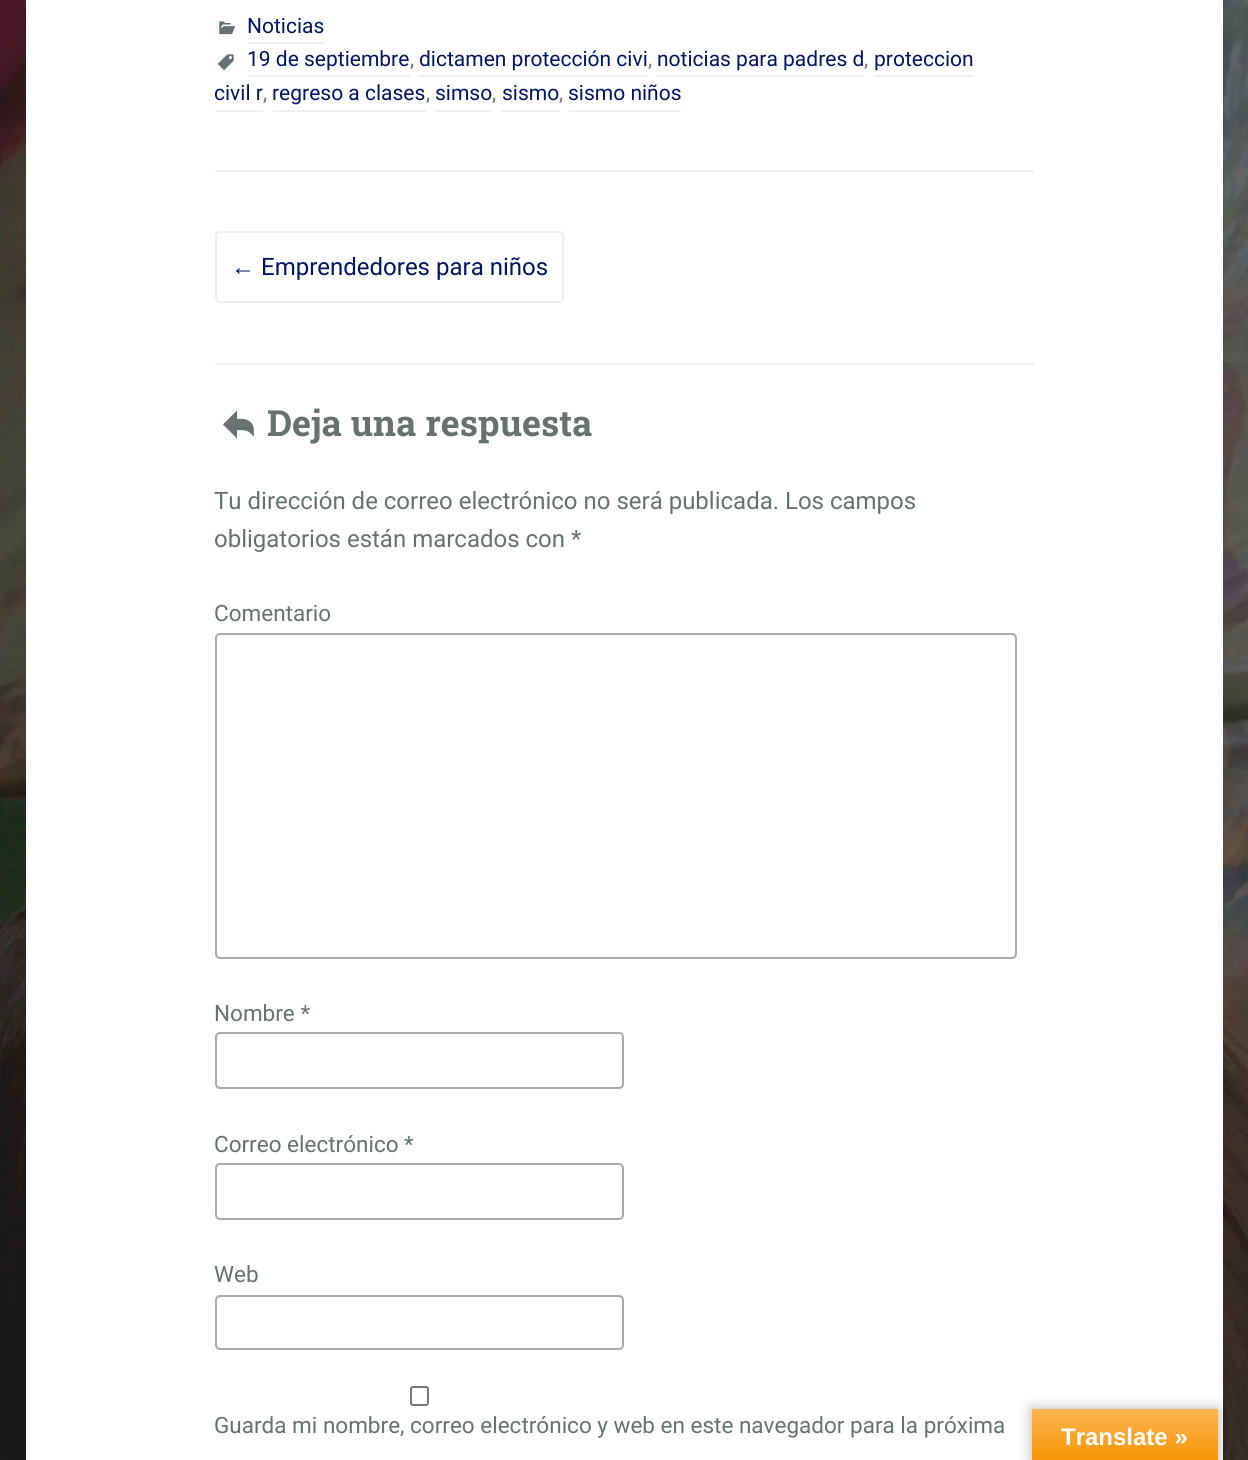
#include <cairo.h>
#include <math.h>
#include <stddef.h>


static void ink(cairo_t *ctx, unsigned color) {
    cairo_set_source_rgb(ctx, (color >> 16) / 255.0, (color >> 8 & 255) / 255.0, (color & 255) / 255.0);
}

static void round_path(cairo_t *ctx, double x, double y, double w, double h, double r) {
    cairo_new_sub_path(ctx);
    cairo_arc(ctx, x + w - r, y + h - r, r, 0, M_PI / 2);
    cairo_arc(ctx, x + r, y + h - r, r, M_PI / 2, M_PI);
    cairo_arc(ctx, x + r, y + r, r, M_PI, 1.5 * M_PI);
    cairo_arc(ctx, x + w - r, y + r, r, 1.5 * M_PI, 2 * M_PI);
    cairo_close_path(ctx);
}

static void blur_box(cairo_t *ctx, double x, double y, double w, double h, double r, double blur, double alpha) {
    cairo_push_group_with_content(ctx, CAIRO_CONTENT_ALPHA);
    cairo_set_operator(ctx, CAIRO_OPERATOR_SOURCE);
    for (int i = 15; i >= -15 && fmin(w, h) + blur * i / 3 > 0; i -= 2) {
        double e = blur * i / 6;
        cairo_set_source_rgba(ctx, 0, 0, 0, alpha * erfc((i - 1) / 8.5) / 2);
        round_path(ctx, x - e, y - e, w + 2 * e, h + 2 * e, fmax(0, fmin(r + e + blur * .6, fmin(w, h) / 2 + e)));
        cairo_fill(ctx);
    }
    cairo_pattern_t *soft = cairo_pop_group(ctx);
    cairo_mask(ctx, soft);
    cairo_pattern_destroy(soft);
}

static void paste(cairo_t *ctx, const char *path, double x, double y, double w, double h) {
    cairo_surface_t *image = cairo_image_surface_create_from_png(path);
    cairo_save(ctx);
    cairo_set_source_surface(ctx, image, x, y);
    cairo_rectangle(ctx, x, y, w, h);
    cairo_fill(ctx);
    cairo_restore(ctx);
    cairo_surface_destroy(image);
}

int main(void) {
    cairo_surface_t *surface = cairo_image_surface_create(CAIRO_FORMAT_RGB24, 1248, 1460);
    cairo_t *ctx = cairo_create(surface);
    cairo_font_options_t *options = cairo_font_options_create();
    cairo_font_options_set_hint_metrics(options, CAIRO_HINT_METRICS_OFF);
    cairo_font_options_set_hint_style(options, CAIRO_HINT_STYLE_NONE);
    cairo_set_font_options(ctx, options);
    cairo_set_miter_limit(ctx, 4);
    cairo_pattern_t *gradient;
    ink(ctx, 0xFFFFFF);
    cairo_paint(ctx);
    paste(ctx, "media/1.png", 0, 0, 1248, 1460);
    ink(ctx, 0xFFFFFF);
    cairo_rectangle(ctx, 26, 0, 1197, 1460);
    cairo_fill(ctx);
    ink(ctx, 0xEEEEEE);
    cairo_rectangle(ctx, 215, 170, 819, 2);
    cairo_fill(ctx);
    paste(ctx, "media/2.png", 219, 21, 17, 14);
    cairo_select_font_face(ctx, "Roboto", CAIRO_FONT_SLANT_NORMAL, CAIRO_FONT_WEIGHT_NORMAL);
    cairo_set_font_size(ctx, 21);
    ink(ctx, 0x001563);
    cairo_move_to(ctx, 247, 33);
    cairo_show_text(ctx, "Noticias");
    ink(ctx, 0xEEEEEE);
    cairo_rectangle(ctx, 248, 42, 76, 2);
    cairo_fill(ctx);
    paste(ctx, "media/3.png", 217, 54, 17, 17);
    ink(ctx, 0x001563);
    cairo_move_to(ctx, 247, 66);
    cairo_show_text(ctx, "19 de septiembre");
    ink(ctx, 0xEEEEEE);
    cairo_rectangle(ctx, 248, 75, 162, 2);
    cairo_fill(ctx);
    ink(ctx, 0x667272);
    cairo_move_to(ctx, 410, 66);
    cairo_show_text(ctx, ",");
    ink(ctx, 0x001563);
    cairo_move_to(ctx, 419, 66);
    cairo_show_text(ctx, "dictamen protección civi");
    ink(ctx, 0xEEEEEE);
    cairo_rectangle(ctx, 419, 75, 229, 2);
    cairo_fill(ctx);
    ink(ctx, 0x667272);
    cairo_move_to(ctx, 648, 66);
    cairo_show_text(ctx, ",");
    ink(ctx, 0x001563);
    cairo_move_to(ctx, 657, 66);
    cairo_show_text(ctx, "noticias para padres d");
    ink(ctx, 0xEEEEEE);
    cairo_rectangle(ctx, 657, 75, 207, 2);
    cairo_fill(ctx);
    ink(ctx, 0x667272);
    cairo_move_to(ctx, 864, 66);
    cairo_show_text(ctx, ",");
    ink(ctx, 0x001563);
    cairo_move_to(ctx, 874, 66);
    cairo_show_text(ctx, "proteccion");
    ink(ctx, 0xEEEEEE);
    cairo_rectangle(ctx, 875, 75, 99, 2);
    cairo_fill(ctx);
    ink(ctx, 0x001563);
    cairo_move_to(ctx, 214, 100);
    cairo_show_text(ctx, "civil r");
    ink(ctx, 0xEEEEEE);
    cairo_rectangle(ctx, 215, 110, 48, 2);
    cairo_fill(ctx);
    ink(ctx, 0x667272);
    cairo_move_to(ctx, 263, 100);
    cairo_show_text(ctx, ",");
    ink(ctx, 0x001563);
    cairo_move_to(ctx, 272, 100);
    cairo_show_text(ctx, "regreso a clases");
    ink(ctx, 0xEEEEEE);
    cairo_rectangle(ctx, 273, 110, 153, 2);
    cairo_fill(ctx);
    ink(ctx, 0x667272);
    cairo_move_to(ctx, 426, 100);
    cairo_show_text(ctx, ",");
    ink(ctx, 0x001563);
    cairo_move_to(ctx, 435, 100);
    cairo_show_text(ctx, "simso");
    ink(ctx, 0xEEEEEE);
    cairo_rectangle(ctx, 435, 110, 57, 2);
    cairo_fill(ctx);
    ink(ctx, 0x667272);
    cairo_move_to(ctx, 492, 100);
    cairo_show_text(ctx, ",");
    ink(ctx, 0x001563);
    cairo_move_to(ctx, 502, 100);
    cairo_show_text(ctx, "sismo");
    ink(ctx, 0xEEEEEE);
    cairo_rectangle(ctx, 501, 110, 59, 2);
    cairo_fill(ctx);
    ink(ctx, 0x667272);
    cairo_move_to(ctx, 559, 100);
    cairo_show_text(ctx, ",");
    ink(ctx, 0x001563);
    cairo_move_to(ctx, 568, 100);
    cairo_show_text(ctx, "sismo niños");
    ink(ctx, 0xEEEEEE);
    cairo_rectangle(ctx, 569, 110, 112, 2);
    cairo_fill(ctx);
    round_path(ctx, 216, 232, 347, 70, 4);
    cairo_stroke(ctx);
    cairo_select_font_face(ctx, "Liberation Sans", CAIRO_FONT_SLANT_NORMAL, CAIRO_FONT_WEIGHT_NORMAL);
    cairo_set_font_size(ctx, 24);
    ink(ctx, 0x001563);
    cairo_move_to(ctx, 231, 275);
    cairo_show_text(ctx, "←");
    cairo_select_font_face(ctx, "Roboto", CAIRO_FONT_SLANT_NORMAL, CAIRO_FONT_WEIGHT_NORMAL);
    cairo_move_to(ctx, 261, 275);
    cairo_show_text(ctx, "Emprendedores para niños");
    ink(ctx, 0xEEEEEE);
    cairo_rectangle(ctx, 215, 363, 819, 2);
    cairo_fill(ctx);
    paste(ctx, "media/4.png", 223, 410, 31, 29);
    cairo_select_font_face(ctx, "Roboto Slab", CAIRO_FONT_SLANT_NORMAL, CAIRO_FONT_WEIGHT_BOLD);
    cairo_set_font_size(ctx, 36);
    ink(ctx, 0x667272);
    cairo_move_to(ctx, 267, 436);
    cairo_show_text(ctx, "Deja una respuesta");
    cairo_select_font_face(ctx, "Roboto", CAIRO_FONT_SLANT_NORMAL, CAIRO_FONT_WEIGHT_NORMAL);
    cairo_set_font_size(ctx, 24);
    cairo_move_to(ctx, 214, 509);
    cairo_show_text(ctx, "Tu dirección de correo electrónico no será publicada. Los campos");
    cairo_move_to(ctx, 214, 547);
    cairo_show_text(ctx, "obligatorios están marcados con *");
    cairo_set_font_size(ctx, 22.5);
    cairo_move_to(ctx, 214, 621);
    cairo_show_text(ctx, "Comentario");
    round_path(ctx, 216, 634, 800, 324, 4);
    ink(ctx, 0xAAAAAA);
    cairo_stroke(ctx);
    ink(ctx, 0x667272);
    cairo_move_to(ctx, 214, 1021);
    cairo_show_text(ctx, "Nombre *");
    round_path(ctx, 216, 1033, 407, 55, 4);
    ink(ctx, 0xAAAAAA);
    cairo_stroke(ctx);
    ink(ctx, 0x667272);
    cairo_move_to(ctx, 214, 1152);
    cairo_show_text(ctx, "Correo electrónico *");
    round_path(ctx, 216, 1164, 407, 55, 4);
    ink(ctx, 0xAAAAAA);
    cairo_stroke(ctx);
    ink(ctx, 0x667272);
    cairo_move_to(ctx, 214, 1282);
    cairo_show_text(ctx, "Web");
    round_path(ctx, 216, 1296, 407, 53, 4);
    ink(ctx, 0xAAAAAA);
    cairo_stroke(ctx);
    round_path(ctx, 411, 1387, 17, 18, 2);
    ink(ctx, 0x767676);
    cairo_stroke(ctx);
    ink(ctx, 0x667272);
    cairo_move_to(ctx, 214, 1433);
    cairo_show_text(ctx, "Guarda mi nombre, correo electrónico y web en este navegador para la próxima");
    ink(ctx, 0x000000);
    blur_box(ctx, 1032, 1409, 186, 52, 0, 7, 0.3);
    gradient = cairo_pattern_create_linear(1125, 1409, 1125, 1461);
    cairo_pattern_add_color_stop_rgba(gradient, 0, 0.984, 0.706, 0.314, 1);
    cairo_pattern_add_color_stop_rgba(gradient, 1, 0.973, 0.58, 0.024, 1);
    cairo_set_source(ctx, gradient);
    cairo_pattern_destroy(gradient);
    cairo_rectangle(ctx, 1032, 1409, 186, 51);
    cairo_fill(ctx);
    cairo_select_font_face(ctx, "Liberation Sans", CAIRO_FONT_SLANT_NORMAL, CAIRO_FONT_WEIGHT_BOLD);
    cairo_set_font_size(ctx, 24);
    ink(ctx, 0xFFFFFF);
    cairo_move_to(ctx, 1061, 1445);
    cairo_show_text(ctx, "Translate »");
    cairo_surface_write_to_png(surface, "image.png");
    cairo_font_options_destroy(options);
    cairo_destroy(ctx);
    cairo_surface_destroy(surface);
    return 0;
}
